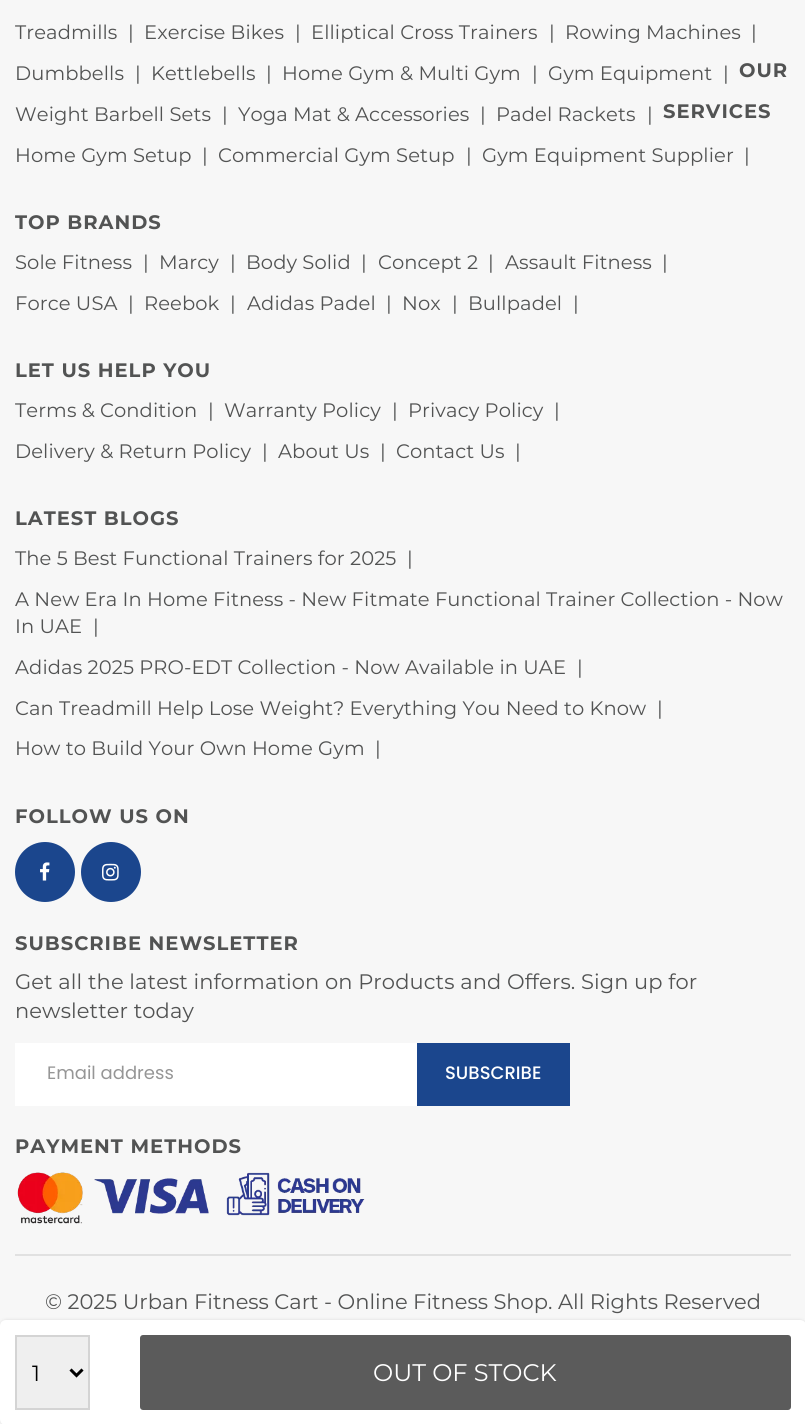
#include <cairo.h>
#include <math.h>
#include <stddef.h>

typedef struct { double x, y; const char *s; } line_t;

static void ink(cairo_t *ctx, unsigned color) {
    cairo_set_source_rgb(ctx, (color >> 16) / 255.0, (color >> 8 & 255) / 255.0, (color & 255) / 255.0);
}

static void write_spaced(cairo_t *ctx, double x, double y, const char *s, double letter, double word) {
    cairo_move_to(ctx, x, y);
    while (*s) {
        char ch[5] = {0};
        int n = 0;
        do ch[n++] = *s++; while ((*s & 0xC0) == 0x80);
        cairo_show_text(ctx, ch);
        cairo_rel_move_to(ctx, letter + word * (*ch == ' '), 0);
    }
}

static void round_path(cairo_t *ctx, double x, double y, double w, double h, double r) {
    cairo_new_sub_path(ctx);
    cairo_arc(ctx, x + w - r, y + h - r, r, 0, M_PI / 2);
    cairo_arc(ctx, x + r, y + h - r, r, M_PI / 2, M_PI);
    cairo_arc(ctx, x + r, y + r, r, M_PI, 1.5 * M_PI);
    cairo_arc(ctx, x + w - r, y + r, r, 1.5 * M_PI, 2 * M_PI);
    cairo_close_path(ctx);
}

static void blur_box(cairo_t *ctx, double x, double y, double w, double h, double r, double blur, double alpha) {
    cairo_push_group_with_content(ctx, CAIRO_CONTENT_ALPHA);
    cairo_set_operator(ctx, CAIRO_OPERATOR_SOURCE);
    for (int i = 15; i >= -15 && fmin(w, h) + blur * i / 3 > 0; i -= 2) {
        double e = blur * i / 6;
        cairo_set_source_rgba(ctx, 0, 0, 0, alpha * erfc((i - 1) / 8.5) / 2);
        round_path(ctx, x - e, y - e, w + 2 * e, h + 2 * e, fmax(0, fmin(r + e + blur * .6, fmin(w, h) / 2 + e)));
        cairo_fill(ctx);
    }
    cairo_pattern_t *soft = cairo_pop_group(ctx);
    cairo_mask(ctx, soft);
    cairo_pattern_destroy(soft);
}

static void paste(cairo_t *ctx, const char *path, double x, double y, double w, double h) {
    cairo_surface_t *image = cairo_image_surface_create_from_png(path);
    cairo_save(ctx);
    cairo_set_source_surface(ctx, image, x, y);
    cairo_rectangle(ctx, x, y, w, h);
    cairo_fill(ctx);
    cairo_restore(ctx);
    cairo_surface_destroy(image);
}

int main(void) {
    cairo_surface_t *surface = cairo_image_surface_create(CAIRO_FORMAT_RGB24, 805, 1424);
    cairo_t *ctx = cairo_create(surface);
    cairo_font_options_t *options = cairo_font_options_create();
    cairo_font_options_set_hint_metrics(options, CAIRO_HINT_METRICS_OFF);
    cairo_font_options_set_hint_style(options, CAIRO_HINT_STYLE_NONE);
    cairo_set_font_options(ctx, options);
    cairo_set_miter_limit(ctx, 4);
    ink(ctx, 0xF7F7F7);
    cairo_paint(ctx);
    cairo_select_font_face(ctx, "Montserrat", CAIRO_FONT_SLANT_NORMAL, CAIRO_FONT_WEIGHT_NORMAL);
    cairo_set_font_size(ctx, 19.5);
    ink(ctx, 0x525353);
    {
        static const line_t items[] = {
            {15, 39, "Treadmills"},
            {128, 39, "|"},
            {144, 39, "Exercise Bikes"},
            {295, 39, "|"},
            {311, 39, "Elliptical Cross Trainers"},
            {549, 39, "|"},
            {565, 39, "Rowing Machines"},
            {751, 39, "|"},
            {15, 80, "Dumbbells"},
            {135, 80, "|"},
            {151, 80, "Kettlebells"},
            {266, 80, "|"},
            {282, 80, "Home Gym & Multi Gym"},
            {532, 80, "|"},
            {548, 80, "Gym Equipment"},
            {723, 80, "|"},
            {15, 121, "Weight Barbell Sets"},
            {222, 121, "|"},
            {238, 121, "Yoga Mat & Accessories"},
            {480, 121, "|"},
            {496, 121, "Padel Rackets"},
            {647, 121, "|"},
        };
        for (size_t i = 0; i < sizeof items / sizeof *items; i++) {
            write_spaced(ctx, items[i].x, items[i].y, items[i].s, 0.1, 0);
        }
    }
    cairo_select_font_face(ctx, "Montserrat", CAIRO_FONT_SLANT_NORMAL, CAIRO_FONT_WEIGHT_BOLD);
    write_spaced(ctx, 739, 77, "OUR", 1, 0);
    write_spaced(ctx, 663, 118, "SERVICES", 1, 0);
    cairo_select_font_face(ctx, "Montserrat", CAIRO_FONT_SLANT_NORMAL, CAIRO_FONT_WEIGHT_NORMAL);
    {
        static const line_t items[] = {
            {15, 162, "Home Gym Setup"},
            {202, 162, "|"},
            {218, 162, "Commercial Gym Setup"},
            {466, 162, "|"},
            {482, 162, "Gym Equipment Supplier"},
            {744, 162, "|"},
        };
        for (size_t i = 0; i < sizeof items / sizeof *items; i++) {
            write_spaced(ctx, items[i].x, items[i].y, items[i].s, 0.1, 0);
        }
    }
    cairo_select_font_face(ctx, "Montserrat", CAIRO_FONT_SLANT_NORMAL, CAIRO_FONT_WEIGHT_BOLD);
    write_spaced(ctx, 15, 229, "TOP BRANDS", 1, 0);
    cairo_select_font_face(ctx, "Montserrat", CAIRO_FONT_SLANT_NORMAL, CAIRO_FONT_WEIGHT_NORMAL);
    {
        static const line_t items[] = {
            {15, 269, "Sole Fitness"},
            {143, 269, "|"},
            {159, 269, "Marcy"},
            {230, 269, "|"},
            {246, 269, "Body Solid"},
            {361, 269, "|"},
            {378, 269, "Concept 2"},
            {488, 269, "|"},
            {505, 269, "Assault Fitness"},
            {662, 269, "|"},
            {15, 310, "Force USA"},
            {128, 310, "|"},
            {144, 310, "Reebok"},
            {230, 310, "|"},
            {247, 310, "Adidas Padel"},
            {386, 310, "|"},
            {402, 310, "Nox"},
            {452, 310, "|"},
            {468, 310, "Bullpadel"},
            {573, 310, "|"},
        };
        for (size_t i = 0; i < sizeof items / sizeof *items; i++) {
            write_spaced(ctx, items[i].x, items[i].y, items[i].s, 0.1, 0);
        }
    }
    cairo_select_font_face(ctx, "Montserrat", CAIRO_FONT_SLANT_NORMAL, CAIRO_FONT_WEIGHT_BOLD);
    write_spaced(ctx, 15, 377, "LET US HELP YOU", 1, 0);
    cairo_select_font_face(ctx, "Montserrat", CAIRO_FONT_SLANT_NORMAL, CAIRO_FONT_WEIGHT_NORMAL);
    {
        static const line_t items[] = {
            {15, 417, "Terms & Condition"},
            {208, 417, "|"},
            {224, 417, "Warranty Policy"},
            {392, 417, "|"},
            {408, 417, "Privacy Policy"},
            {554, 417, "|"},
            {15, 458, "Delivery & Return Policy"},
            {262, 458, "|"},
            {278, 458, "About Us"},
            {380, 458, "|"},
            {396, 458, "Contact Us"},
            {515, 458, "|"},
        };
        for (size_t i = 0; i < sizeof items / sizeof *items; i++) {
            write_spaced(ctx, items[i].x, items[i].y, items[i].s, 0.1, 0);
        }
    }
    cairo_select_font_face(ctx, "Montserrat", CAIRO_FONT_SLANT_NORMAL, CAIRO_FONT_WEIGHT_BOLD);
    write_spaced(ctx, 15, 525, "LATEST BLOGS", 1, 0);
    cairo_select_font_face(ctx, "Montserrat", CAIRO_FONT_SLANT_NORMAL, CAIRO_FONT_WEIGHT_NORMAL);
    {
        static const line_t items[] = {
            {15, 565, "The 5 Best Functional Trainers for 2025"},
            {407, 565, "|"},
            {15, 606, "A New Era In Home Fitness - New Fitmate Functional Trainer Collection - Now"},
            {15, 633, "In UAE"},
            {93, 633, "|"},
            {15, 674, "Adidas 2025 PRO-EDT Collection - Now Available in UAE"},
            {577, 674, "|"},
            {15, 715, "Can Treadmill Help Lose Weight? Everything You Need to Know"},
            {657, 715, "|"},
            {15, 755, "How to Build Your Own Home Gym"},
            {375, 755, "|"},
        };
        for (size_t i = 0; i < sizeof items / sizeof *items; i++) {
            write_spaced(ctx, items[i].x, items[i].y, items[i].s, 0.1, 0);
        }
    }
    cairo_select_font_face(ctx, "Montserrat", CAIRO_FONT_SLANT_NORMAL, CAIRO_FONT_WEIGHT_BOLD);
    write_spaced(ctx, 15, 823, "FOLLOW US ON", 1, 0);
    ink(ctx, 0x1B468D);
    cairo_new_path(ctx);
    cairo_arc(ctx, 45, 872, 30, 0, 2 * M_PI);
    cairo_fill(ctx);
    paste(ctx, "media/1.png", 40, 862, 10, 19);
    cairo_arc(ctx, 111, 872, 30, 0, 2 * M_PI);
    cairo_fill(ctx);
    paste(ctx, "media/2.png", 102, 863, 17, 18);
    ink(ctx, 0x525353);
    write_spaced(ctx, 15, 950, "SUBSCRIBE NEWSLETTER", 1, 0);
    cairo_select_font_face(ctx, "Montserrat", CAIRO_FONT_SLANT_NORMAL, CAIRO_FONT_WEIGHT_NORMAL);
    cairo_set_font_size(ctx, 21);
    write_spaced(ctx, 15, 989, "Get all the latest information on Products and Offers. Sign up for", 0.1, 0);
    write_spaced(ctx, 15, 1018, "newsletter today", 0.1, 0);
    ink(ctx, 0xFFFFFF);
    cairo_rectangle(ctx, 17, 1045, 400, 59);
    cairo_fill(ctx);
    cairo_rectangle(ctx, 16, 1044, 553, 61);
    cairo_stroke(ctx);
    cairo_select_font_face(ctx, "Poppins", CAIRO_FONT_SLANT_NORMAL, CAIRO_FONT_WEIGHT_NORMAL);
    cairo_set_font_size(ctx, 18);
    ink(ctx, 0x969696);
    cairo_move_to(ctx, 47, 1079);
    cairo_show_text(ctx, "Email address");
    ink(ctx, 0x1B468D);
    cairo_rectangle(ctx, 417, 1043, 153, 63);
    cairo_fill(ctx);
    cairo_select_font_face(ctx, "Poppins Medium", CAIRO_FONT_SLANT_NORMAL, CAIRO_FONT_WEIGHT_NORMAL);
    ink(ctx, 0xFFFFFF);
    cairo_move_to(ctx, 445, 1079);
    cairo_show_text(ctx, "SUBSCRIBE");
    cairo_select_font_face(ctx, "Montserrat", CAIRO_FONT_SLANT_NORMAL, CAIRO_FONT_WEIGHT_BOLD);
    cairo_set_font_size(ctx, 19.5);
    ink(ctx, 0x525353);
    write_spaced(ctx, 15, 1153, "PAYMENT METHODS", 1, 0);
    paste(ctx, "media/3.png", 17, 1172, 348, 52);
    ink(ctx, 0xE1E1E1);
    cairo_rectangle(ctx, 15, 1254, 776, 2);
    cairo_fill(ctx);
    cairo_select_font_face(ctx, "Montserrat", CAIRO_FONT_SLANT_NORMAL, CAIRO_FONT_WEIGHT_NORMAL);
    cairo_set_font_size(ctx, 21);
    ink(ctx, 0x525353);
    cairo_move_to(ctx, 45, 1309);
    cairo_show_text(ctx, "© 2025 Urban Fitness Cart - Online Fitness Shop. All Rights Reserved");
    ink(ctx, 0xDBDBDB);
    blur_box(ctx, 0, 1320, 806, 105, 6, 1.5, 1);
    ink(ctx, 0xFFFFFF);
    cairo_new_path(ctx);
    cairo_move_to(ctx, 6, 1320);
    cairo_line_to(ctx, 800, 1320);
    cairo_curve_to(ctx, 803.5, 1320, 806, 1322.5, 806, 1326);
    cairo_line_to(ctx, 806, 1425);
    cairo_line_to(ctx, 6, 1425);
    cairo_curve_to(ctx, 2.5, 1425, 0, 1422.5, 0, 1419);
    cairo_line_to(ctx, 0, 1326);
    cairo_curve_to(ctx, 0, 1322.5, 2.5, 1320, 6, 1320);
    cairo_close_path(ctx);
    cairo_fill(ctx);
    ink(ctx, 0xEFEFEF);
    cairo_rectangle(ctx, 16, 1336, 73, 73);
    cairo_fill_preserve(ctx);
    ink(ctx, 0xD4D4D4);
    cairo_stroke(ctx);
    cairo_new_path(ctx);
    cairo_move_to(ctx, 70.5, 1369.5);
    cairo_line_to(ctx, 76.5, 1375.5);
    cairo_line_to(ctx, 82.5, 1369.5);
    ink(ctx, 0x000000);
    cairo_set_line_width(ctx, 3);
    cairo_stroke(ctx);
    cairo_set_font_size(ctx, 22);
    cairo_move_to(ctx, 32, 1381);
    cairo_show_text(ctx, "1");
    ink(ctx, 0x5B5B5B);
    round_path(ctx, 140, 1335, 651, 75, 3);
    cairo_fill(ctx);
    cairo_set_font_size(ctx, 24);
    ink(ctx, 0xFFFFFF);
    cairo_move_to(ctx, 373, 1381);
    cairo_show_text(ctx, "OUT OF STOCK");
    cairo_surface_write_to_png(surface, "image.png");
    cairo_font_options_destroy(options);
    cairo_destroy(ctx);
    cairo_surface_destroy(surface);
    return 0;
}
